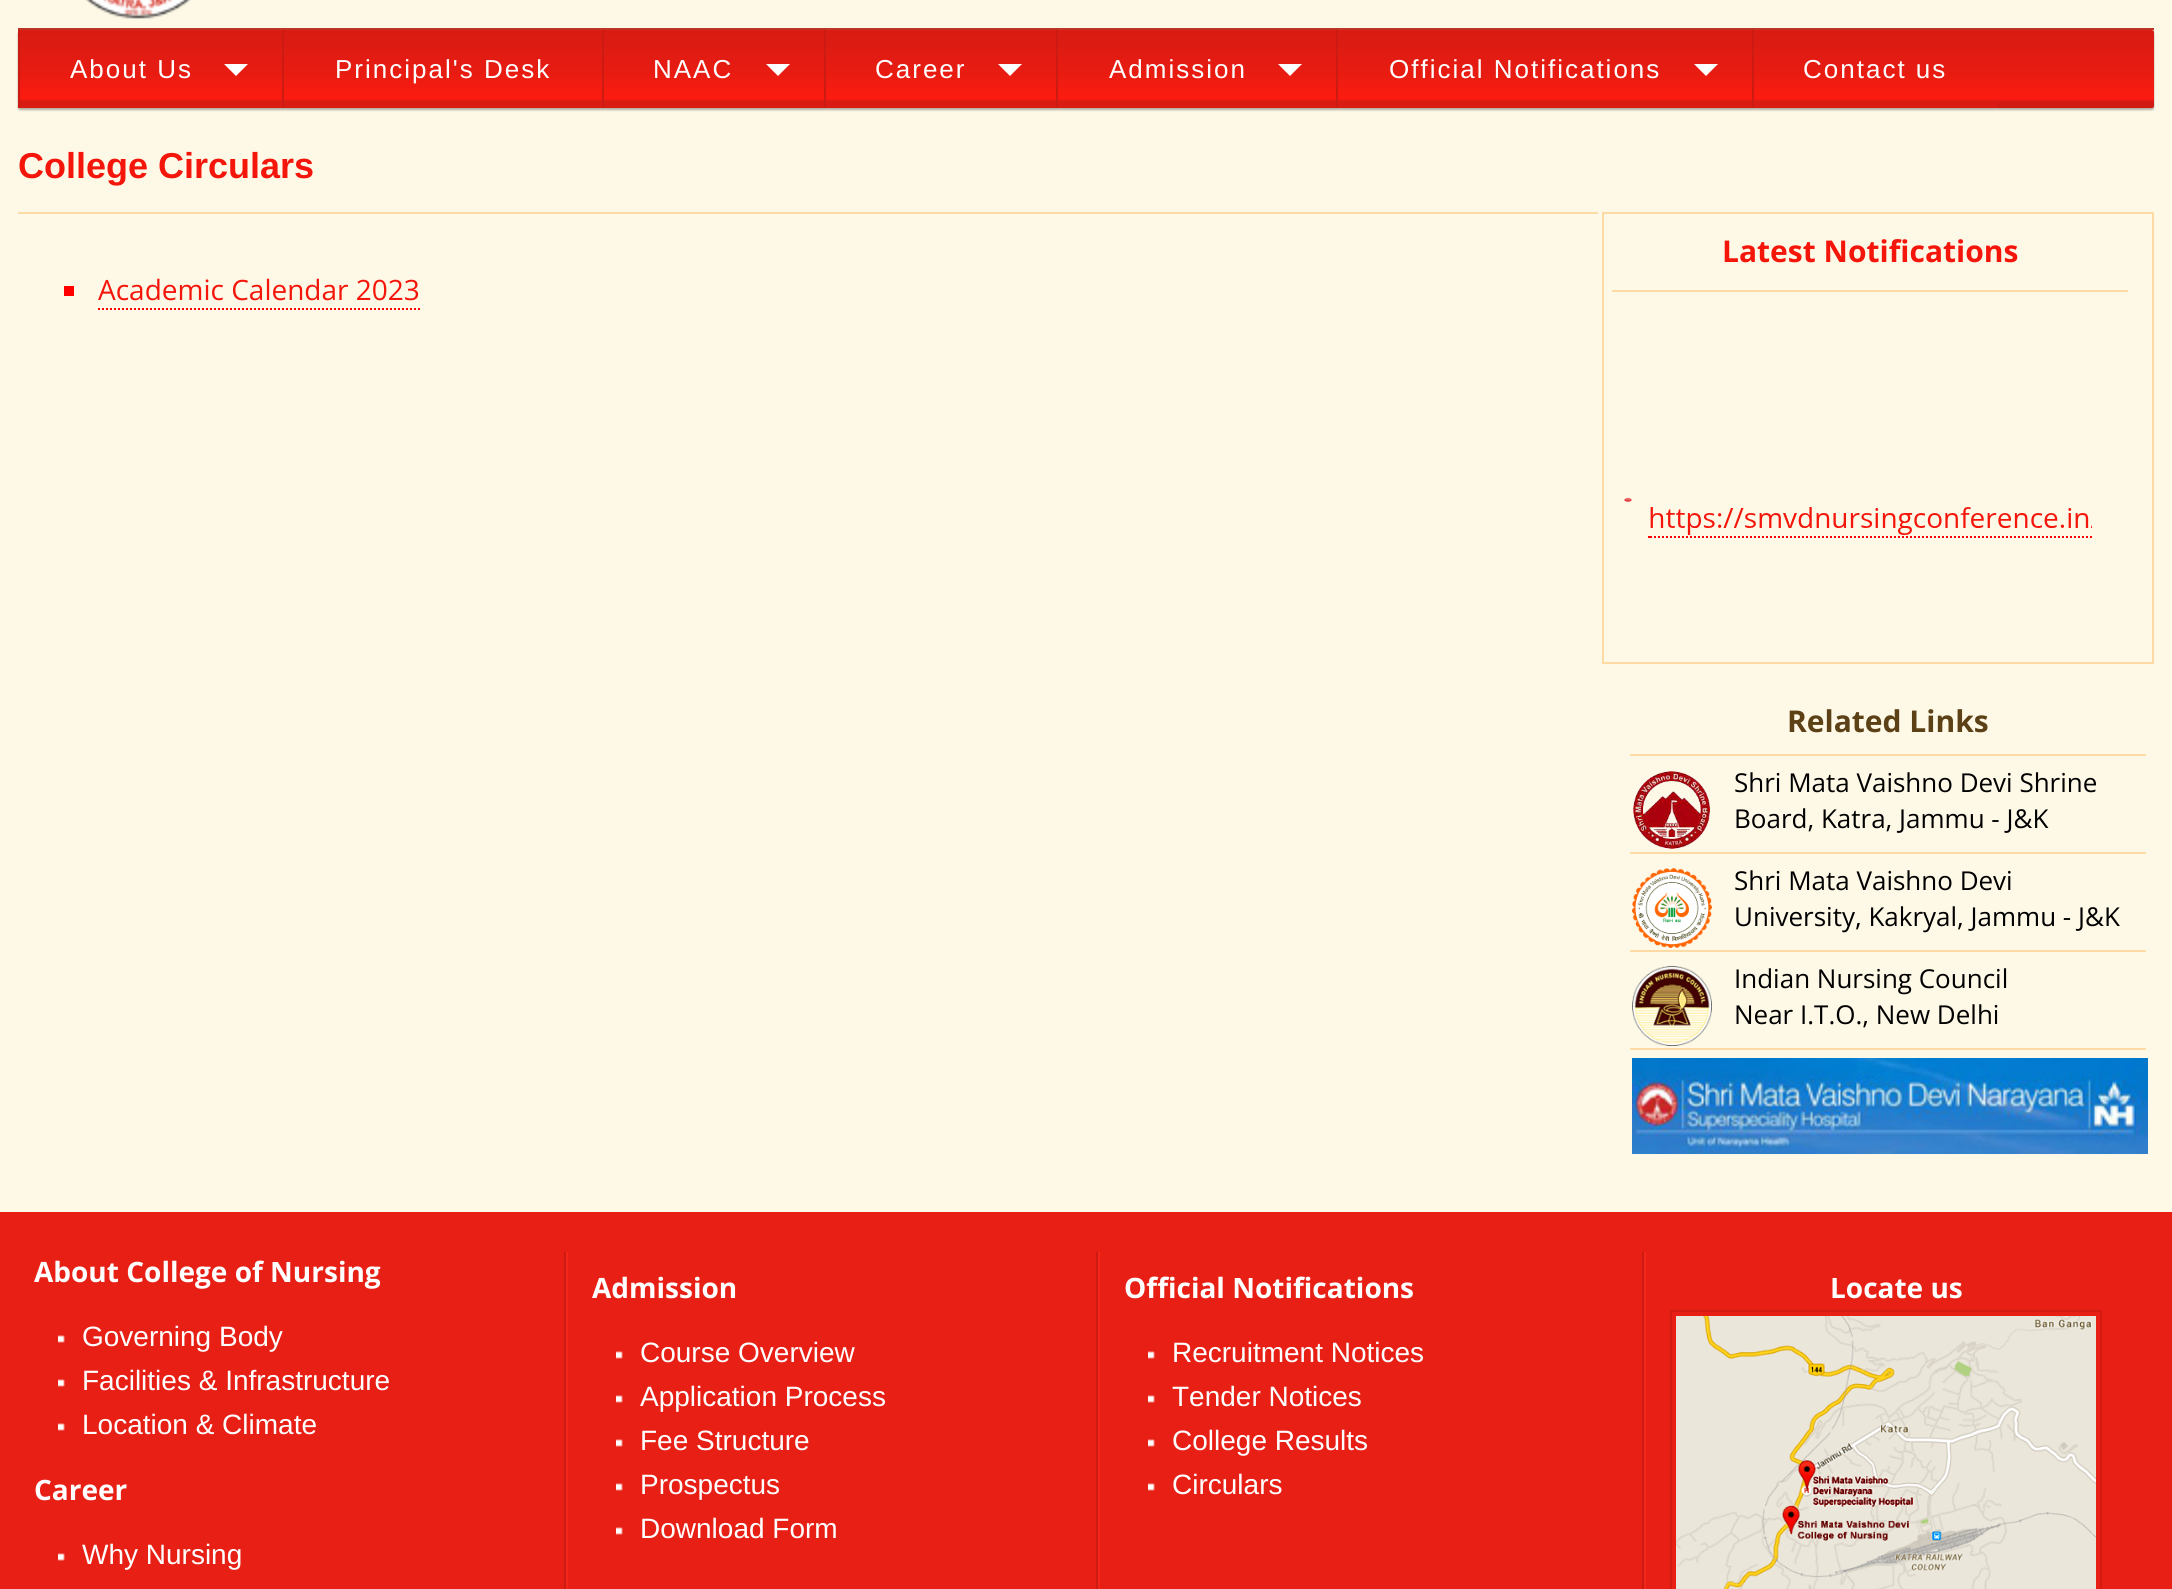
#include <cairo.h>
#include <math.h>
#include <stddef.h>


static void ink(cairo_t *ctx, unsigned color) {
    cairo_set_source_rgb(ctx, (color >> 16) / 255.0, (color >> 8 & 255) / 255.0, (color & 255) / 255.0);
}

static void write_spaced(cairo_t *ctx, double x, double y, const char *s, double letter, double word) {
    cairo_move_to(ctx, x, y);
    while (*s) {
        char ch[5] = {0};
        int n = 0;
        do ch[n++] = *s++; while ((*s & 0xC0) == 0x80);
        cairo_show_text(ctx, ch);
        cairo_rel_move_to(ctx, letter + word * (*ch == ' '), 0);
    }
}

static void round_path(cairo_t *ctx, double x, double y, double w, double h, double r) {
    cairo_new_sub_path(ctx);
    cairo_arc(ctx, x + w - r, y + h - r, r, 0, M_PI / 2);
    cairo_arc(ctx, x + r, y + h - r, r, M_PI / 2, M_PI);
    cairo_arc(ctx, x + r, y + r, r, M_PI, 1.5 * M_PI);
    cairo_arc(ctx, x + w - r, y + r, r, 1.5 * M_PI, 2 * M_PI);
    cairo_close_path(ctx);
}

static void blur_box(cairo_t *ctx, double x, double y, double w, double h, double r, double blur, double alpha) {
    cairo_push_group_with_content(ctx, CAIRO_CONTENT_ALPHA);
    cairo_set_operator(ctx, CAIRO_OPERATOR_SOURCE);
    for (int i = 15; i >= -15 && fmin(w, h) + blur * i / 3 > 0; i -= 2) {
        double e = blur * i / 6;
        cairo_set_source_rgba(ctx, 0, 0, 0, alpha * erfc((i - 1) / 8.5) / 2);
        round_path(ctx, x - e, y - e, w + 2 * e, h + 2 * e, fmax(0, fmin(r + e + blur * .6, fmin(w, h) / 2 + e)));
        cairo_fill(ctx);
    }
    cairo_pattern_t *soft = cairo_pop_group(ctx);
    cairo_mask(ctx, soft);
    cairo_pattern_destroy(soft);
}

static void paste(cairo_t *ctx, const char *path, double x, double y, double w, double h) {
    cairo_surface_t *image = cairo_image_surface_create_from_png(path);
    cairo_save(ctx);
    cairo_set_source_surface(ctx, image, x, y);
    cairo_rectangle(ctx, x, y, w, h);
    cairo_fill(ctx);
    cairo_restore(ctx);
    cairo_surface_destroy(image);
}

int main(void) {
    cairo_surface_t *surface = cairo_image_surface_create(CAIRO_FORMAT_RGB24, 2172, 1589);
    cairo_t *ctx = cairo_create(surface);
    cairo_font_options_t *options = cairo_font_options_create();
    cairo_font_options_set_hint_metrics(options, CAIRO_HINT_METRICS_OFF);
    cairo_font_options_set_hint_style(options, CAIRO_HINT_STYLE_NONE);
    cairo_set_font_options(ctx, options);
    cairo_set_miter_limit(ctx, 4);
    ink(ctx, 0xFEF9E7);
    cairo_paint(ctx);
    ink(ctx, 0xBC3625);
    cairo_rectangle(ctx, 18, 28, 2136, 2);
    cairo_fill(ctx);
    paste(ctx, "media/1.png", 85, 0, 106, 19);
    ink(ctx, 0x000000);
    blur_box(ctx, 18, 32, 2136, 78, 2, 1, 0.3);
    paste(ctx, "media/2.png", 284, 30, 1870, 78);
    cairo_set_source_rgba(ctx, 0, 0, 0, 0.05);
    cairo_rectangle(ctx, 1998, 102, 156, 6);
    cairo_fill(ctx);
    paste(ctx, "media/3.png", 20, 30, 262, 78);
    ink(ctx, 0xCB1B12);
    cairo_rectangle(ctx, 18, 30, 2, 78);
    cairo_fill(ctx);
    cairo_select_font_face(ctx, "Liberation Sans", CAIRO_FONT_SLANT_NORMAL, CAIRO_FONT_WEIGHT_NORMAL);
    cairo_set_font_size(ctx, 26);
    ink(ctx, 0xFFFFFF);
    write_spaced(ctx, 70, 78, "About Us", 2, 0);
    cairo_new_path(ctx);
    cairo_move_to(ctx, 224, 64);
    cairo_line_to(ctx, 248, 64);
    cairo_line_to(ctx, 236, 76);
    cairo_close_path(ctx);
    cairo_fill(ctx);
    ink(ctx, 0xD91C13);
    cairo_rectangle(ctx, 282, 102, 2, 6);
    cairo_fill(ctx);
    ink(ctx, 0xCB1B12);
    cairo_rectangle(ctx, 282, 30, 2, 78);
    cairo_fill(ctx);
    ink(ctx, 0xFFFFFF);
    write_spaced(ctx, 335, 78, "Principal's Desk", 2, 0);
    ink(ctx, 0xCB1B12);
    cairo_rectangle(ctx, 602, 30, 2, 78);
    cairo_fill(ctx);
    ink(ctx, 0xFFFFFF);
    write_spaced(ctx, 653, 78, "NAAC", 2, 0);
    cairo_new_path(ctx);
    cairo_move_to(ctx, 766, 64);
    cairo_line_to(ctx, 790, 64);
    cairo_line_to(ctx, 778, 76);
    cairo_close_path(ctx);
    cairo_fill(ctx);
    ink(ctx, 0xCB1B12);
    cairo_rectangle(ctx, 824, 30, 2, 78);
    cairo_fill(ctx);
    ink(ctx, 0xFFFFFF);
    write_spaced(ctx, 875, 78, "Career", 2, 0);
    cairo_new_path(ctx);
    cairo_move_to(ctx, 998, 64);
    cairo_line_to(ctx, 1022, 64);
    cairo_line_to(ctx, 1010, 76);
    cairo_close_path(ctx);
    cairo_fill(ctx);
    ink(ctx, 0xCB1B12);
    cairo_rectangle(ctx, 1056, 30, 2, 78);
    cairo_fill(ctx);
    ink(ctx, 0xFFFFFF);
    write_spaced(ctx, 1109, 78, "Admission", 2, 0);
    cairo_new_path(ctx);
    cairo_move_to(ctx, 1278, 64);
    cairo_line_to(ctx, 1302, 64);
    cairo_line_to(ctx, 1290, 76);
    cairo_close_path(ctx);
    cairo_fill(ctx);
    ink(ctx, 0xCB1B12);
    cairo_rectangle(ctx, 1336, 30, 2, 78);
    cairo_fill(ctx);
    ink(ctx, 0xFFFFFF);
    write_spaced(ctx, 1389, 78, "Official Notifications", 2, 0);
    cairo_new_path(ctx);
    cairo_move_to(ctx, 1694, 64);
    cairo_line_to(ctx, 1718, 64);
    cairo_line_to(ctx, 1706, 76);
    cairo_close_path(ctx);
    cairo_fill(ctx);
    ink(ctx, 0xCB1B12);
    cairo_rectangle(ctx, 1752, 30, 2, 78);
    cairo_fill(ctx);
    ink(ctx, 0xFFFFFF);
    write_spaced(ctx, 1803, 78, "Contact us", 2, 0);
    cairo_select_font_face(ctx, "Liberation Sans", CAIRO_FONT_SLANT_NORMAL, CAIRO_FONT_WEIGHT_BOLD);
    cairo_set_font_size(ctx, 36);
    ink(ctx, 0xF4160B);
    cairo_move_to(ctx, 18, 178);
    cairo_show_text(ctx, "College Circulars");
    ink(ctx, 0xFEDAA5);
    cairo_rectangle(ctx, 18, 212, 1580, 2);
    cairo_fill(ctx);
    ink(ctx, 0xFF0000);
    cairo_rectangle(ctx, 64, 286, 10, 10);
    cairo_fill(ctx);
    cairo_select_font_face(ctx, "Open Sans", CAIRO_FONT_SLANT_NORMAL, CAIRO_FONT_WEIGHT_NORMAL);
    cairo_set_font_size(ctx, 28);
    ink(ctx, 0xF4160B);
    cairo_move_to(ctx, 98, 300);
    cairo_show_text(ctx, "Academic Calendar 2023");
    cairo_new_path(ctx);
    cairo_move_to(ctx, 98, 309);
    cairo_line_to(ctx, 420, 309);
    ink(ctx, 0xFF0000);
    cairo_set_dash(ctx, (double[]){2, 2}, 2, 0);
    cairo_stroke(ctx);
    cairo_rectangle(ctx, 1603, 213, 550, 450);
    ink(ctx, 0xFEDAA5);
    cairo_set_dash(ctx, NULL, 0, 0);
    cairo_stroke(ctx);
    cairo_select_font_face(ctx, "Open Sans", CAIRO_FONT_SLANT_NORMAL, CAIRO_FONT_WEIGHT_BOLD);
    cairo_set_font_size(ctx, 30);
    ink(ctx, 0xF4160B);
    cairo_move_to(ctx, 1722, 262);
    cairo_show_text(ctx, "Latest Notifications");
    ink(ctx, 0xFEDAA5);
    cairo_rectangle(ctx, 1612, 290, 516, 2);
    cairo_fill(ctx);
    paste(ctx, "media/4.png", 1624, 498, 468, 40);
    ink(ctx, 0x5C4016);
    cairo_move_to(ctx, 1787, 732);
    cairo_show_text(ctx, "Related Links");
    ink(ctx, 0xFEDAA5);
    cairo_rectangle(ctx, 1630, 754, 516, 2);
    cairo_fill(ctx);
    paste(ctx, "media/5.png", 1633, 771, 77, 78);
    cairo_select_font_face(ctx, "Open Sans", CAIRO_FONT_SLANT_NORMAL, CAIRO_FONT_WEIGHT_NORMAL);
    cairo_set_font_size(ctx, 26);
    ink(ctx, 0x000000);
    cairo_move_to(ctx, 1734, 792);
    cairo_show_text(ctx, "Shri Mata Vaishno Devi Shrine");
    cairo_move_to(ctx, 1734, 828);
    cairo_show_text(ctx, "Board, Katra, Jammu - J&K");
    ink(ctx, 0xFEDAA5);
    cairo_rectangle(ctx, 1630, 852, 516, 2);
    cairo_fill(ctx);
    paste(ctx, "media/6.png", 1632, 868, 80, 80);
    ink(ctx, 0x000000);
    cairo_move_to(ctx, 1734, 890);
    cairo_show_text(ctx, "Shri Mata Vaishno Devi");
    cairo_move_to(ctx, 1734, 926);
    cairo_show_text(ctx, "University, Kakryal, Jammu - J&K");
    ink(ctx, 0xFEDAA5);
    cairo_rectangle(ctx, 1630, 950, 516, 2);
    cairo_fill(ctx);
    paste(ctx, "media/7.png", 1632, 966, 80, 80);
    ink(ctx, 0x000000);
    cairo_move_to(ctx, 1734, 988);
    cairo_show_text(ctx, "Indian Nursing Council");
    cairo_move_to(ctx, 1734, 1024);
    cairo_show_text(ctx, "Near I.T.O., New Delhi");
    ink(ctx, 0xFEDAA5);
    cairo_rectangle(ctx, 1630, 1048, 516, 2);
    cairo_fill(ctx);
    paste(ctx, "media/8.png", 1632, 1058, 516, 96);
    ink(ctx, 0xE81F15);
    cairo_rectangle(ctx, 0, 1212, 2172, 377);
    cairo_fill(ctx);
    ink(ctx, 0xCC1B12);
    cairo_rectangle(ctx, 564, 1252, 2, 337);
    cairo_fill(ctx);
    cairo_select_font_face(ctx, "Open Sans", CAIRO_FONT_SLANT_NORMAL, CAIRO_FONT_WEIGHT_BOLD);
    cairo_set_font_size(ctx, 28);
    ink(ctx, 0xFFFFFF);
    cairo_move_to(ctx, 34, 1282);
    cairo_show_text(ctx, "About College of Nursing");
    paste(ctx, "media/9.png", 58, 1335, 7, 8);
    cairo_select_font_face(ctx, "Liberation Sans", CAIRO_FONT_SLANT_NORMAL, CAIRO_FONT_WEIGHT_NORMAL);
    cairo_move_to(ctx, 82, 1346);
    cairo_show_text(ctx, "Governing Body");
    paste(ctx, "media/9.png", 58, 1379, 7, 8);
    cairo_move_to(ctx, 82, 1390);
    cairo_show_text(ctx, "Facilities & Infrastructure");
    paste(ctx, "media/9.png", 58, 1423, 7, 8);
    cairo_move_to(ctx, 82, 1434);
    cairo_show_text(ctx, "Location & Climate");
    cairo_select_font_face(ctx, "Open Sans", CAIRO_FONT_SLANT_NORMAL, CAIRO_FONT_WEIGHT_BOLD);
    cairo_move_to(ctx, 34, 1500);
    cairo_show_text(ctx, "Career");
    paste(ctx, "media/9.png", 58, 1553, 7, 8);
    cairo_select_font_face(ctx, "Liberation Sans", CAIRO_FONT_SLANT_NORMAL, CAIRO_FONT_WEIGHT_NORMAL);
    cairo_move_to(ctx, 82, 1564);
    cairo_show_text(ctx, "Why Nursing");
    ink(ctx, 0xCC1B12);
    cairo_rectangle(ctx, 1096, 1252, 2, 337);
    cairo_fill(ctx);
    ink(ctx, 0xF4261C);
    cairo_rectangle(ctx, 566, 1252, 2, 337);
    cairo_fill(ctx);
    cairo_select_font_face(ctx, "Open Sans", CAIRO_FONT_SLANT_NORMAL, CAIRO_FONT_WEIGHT_BOLD);
    ink(ctx, 0xFFFFFF);
    cairo_move_to(ctx, 592, 1298);
    cairo_show_text(ctx, "Admission");
    paste(ctx, "media/9.png", 616, 1351, 7, 8);
    cairo_select_font_face(ctx, "Liberation Sans", CAIRO_FONT_SLANT_NORMAL, CAIRO_FONT_WEIGHT_NORMAL);
    cairo_move_to(ctx, 640, 1362);
    cairo_show_text(ctx, "Course Overview");
    paste(ctx, "media/9.png", 616, 1395, 7, 8);
    cairo_move_to(ctx, 640, 1406);
    cairo_show_text(ctx, "Application Process");
    paste(ctx, "media/9.png", 616, 1439, 7, 8);
    cairo_move_to(ctx, 640, 1450);
    cairo_show_text(ctx, "Fee Structure");
    paste(ctx, "media/9.png", 616, 1483, 7, 8);
    cairo_move_to(ctx, 640, 1494);
    cairo_show_text(ctx, "Prospectus");
    paste(ctx, "media/9.png", 616, 1527, 7, 8);
    cairo_move_to(ctx, 640, 1538);
    cairo_show_text(ctx, "Download Form");
    ink(ctx, 0xCC1B12);
    cairo_rectangle(ctx, 1642, 1252, 2, 337);
    cairo_fill(ctx);
    ink(ctx, 0xF4261C);
    cairo_rectangle(ctx, 1098, 1252, 2, 337);
    cairo_fill(ctx);
    cairo_select_font_face(ctx, "Open Sans", CAIRO_FONT_SLANT_NORMAL, CAIRO_FONT_WEIGHT_BOLD);
    ink(ctx, 0xFFFFFF);
    cairo_move_to(ctx, 1124, 1298);
    cairo_show_text(ctx, "Official Notifications");
    paste(ctx, "media/9.png", 1148, 1351, 7, 8);
    cairo_select_font_face(ctx, "Liberation Sans", CAIRO_FONT_SLANT_NORMAL, CAIRO_FONT_WEIGHT_NORMAL);
    cairo_move_to(ctx, 1172, 1362);
    cairo_show_text(ctx, "Recruitment Notices");
    paste(ctx, "media/9.png", 1148, 1395, 7, 8);
    cairo_move_to(ctx, 1172, 1406);
    cairo_show_text(ctx, "Tender Notices");
    paste(ctx, "media/9.png", 1148, 1439, 7, 8);
    cairo_move_to(ctx, 1172, 1450);
    cairo_show_text(ctx, "College Results");
    paste(ctx, "media/9.png", 1148, 1483, 7, 8);
    cairo_move_to(ctx, 1172, 1494);
    cairo_show_text(ctx, "Circulars");
    ink(ctx, 0xF4261C);
    cairo_rectangle(ctx, 1644, 1252, 2, 337);
    cairo_fill(ctx);
    cairo_select_font_face(ctx, "Open Sans", CAIRO_FONT_SLANT_NORMAL, CAIRO_FONT_WEIGHT_BOLD);
    ink(ctx, 0xFFFFFF);
    cairo_move_to(ctx, 1830, 1298);
    cairo_show_text(ctx, "Locate us");
    cairo_rectangle(ctx, 1671, 1311, 430, 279);
    ink(ctx, 0xD41B12);
    cairo_stroke(ctx);
    paste(ctx, "media/10.png", 1676, 1316, 420, 273);
    cairo_surface_write_to_png(surface, "image.png");
    cairo_font_options_destroy(options);
    cairo_destroy(ctx);
    cairo_surface_destroy(surface);
    return 0;
}
